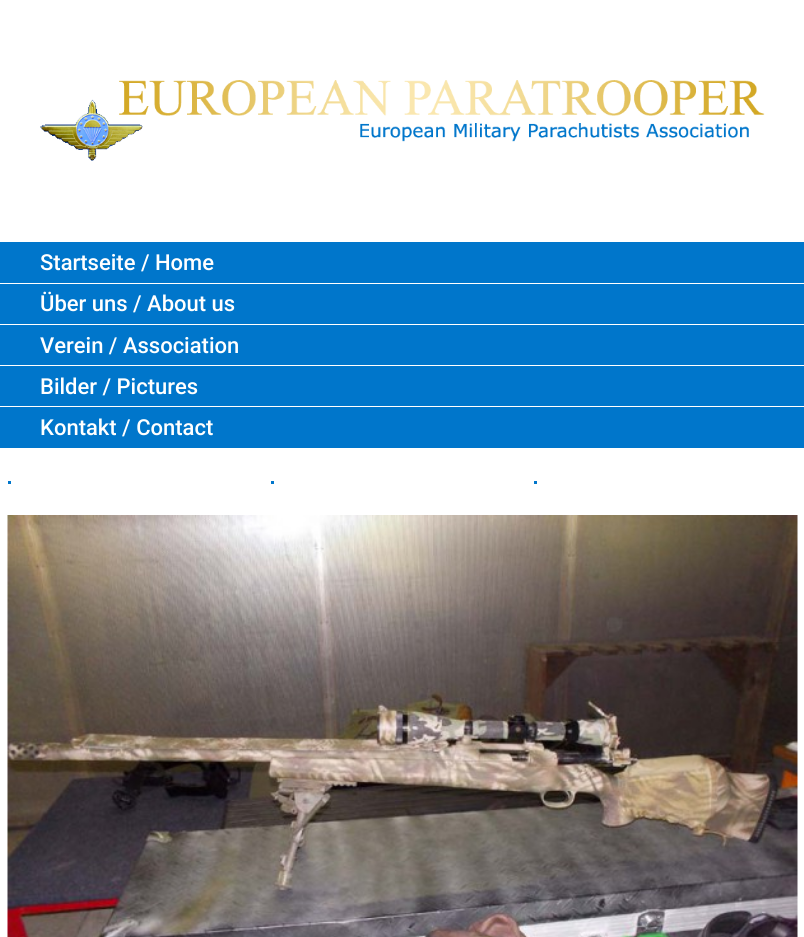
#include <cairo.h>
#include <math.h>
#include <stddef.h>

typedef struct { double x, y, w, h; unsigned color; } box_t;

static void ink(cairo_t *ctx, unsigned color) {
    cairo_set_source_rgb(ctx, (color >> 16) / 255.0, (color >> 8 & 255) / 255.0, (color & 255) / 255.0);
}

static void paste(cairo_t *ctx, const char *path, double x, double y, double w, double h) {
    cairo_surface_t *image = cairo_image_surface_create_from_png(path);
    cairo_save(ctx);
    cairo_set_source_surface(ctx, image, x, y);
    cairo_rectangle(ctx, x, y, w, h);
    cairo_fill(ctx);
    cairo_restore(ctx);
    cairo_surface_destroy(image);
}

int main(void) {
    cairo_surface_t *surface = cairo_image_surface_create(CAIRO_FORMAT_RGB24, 804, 937);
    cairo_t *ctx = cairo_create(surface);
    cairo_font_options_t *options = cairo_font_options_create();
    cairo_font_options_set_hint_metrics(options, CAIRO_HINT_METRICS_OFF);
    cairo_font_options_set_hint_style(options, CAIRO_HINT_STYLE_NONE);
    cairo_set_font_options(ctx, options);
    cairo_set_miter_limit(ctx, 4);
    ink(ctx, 0xFFFFFF);
    cairo_paint(ctx);
    paste(ctx, "media/1.png", 40, 80, 725, 81);
    ink(ctx, 0x0076CB);
    cairo_rectangle(ctx, 0, 242, 804, 206);
    cairo_fill(ctx);
    cairo_select_font_face(ctx, "Roboto Medium", CAIRO_FONT_SLANT_NORMAL, CAIRO_FONT_WEIGHT_NORMAL);
    cairo_set_font_size(ctx, 22);
    ink(ctx, 0xFFFFFF);
    cairo_move_to(ctx, 40, 270);
    cairo_show_text(ctx, "Startseite / Home");
    cairo_rectangle(ctx, 0, 283, 804, 1);
    cairo_fill(ctx);
    cairo_move_to(ctx, 40, 311);
    cairo_show_text(ctx, "Über uns / About us");
    cairo_rectangle(ctx, 0, 324, 804, 1);
    cairo_fill(ctx);
    cairo_move_to(ctx, 40, 353);
    cairo_show_text(ctx, "Verein / Association");
    cairo_rectangle(ctx, 0, 365, 804, 1);
    cairo_fill(ctx);
    cairo_move_to(ctx, 40, 394);
    cairo_show_text(ctx, "Bilder / Pictures");
    cairo_rectangle(ctx, 0, 406, 804, 1);
    cairo_fill(ctx);
    cairo_move_to(ctx, 40, 435);
    cairo_show_text(ctx, "Kontakt / Contact");
    {
        static const box_t items[] = {
            {8, 481, 3, 3, 0x0076CB},
            {271, 481, 3, 3, 0x0076CB},
            {534, 481, 3, 3, 0x0076CB},
        };
        for (size_t i = 0; i < sizeof items / sizeof *items; i++) {
            ink(ctx, items[i].color);
            cairo_rectangle(ctx, items[i].x, items[i].y, items[i].w, items[i].h);
            cairo_fill(ctx);
        }
    }
    paste(ctx, "media/2.png", 7, 515, 791, 422);
    cairo_surface_write_to_png(surface, "image.png");
    cairo_font_options_destroy(options);
    cairo_destroy(ctx);
    cairo_surface_destroy(surface);
    return 0;
}
